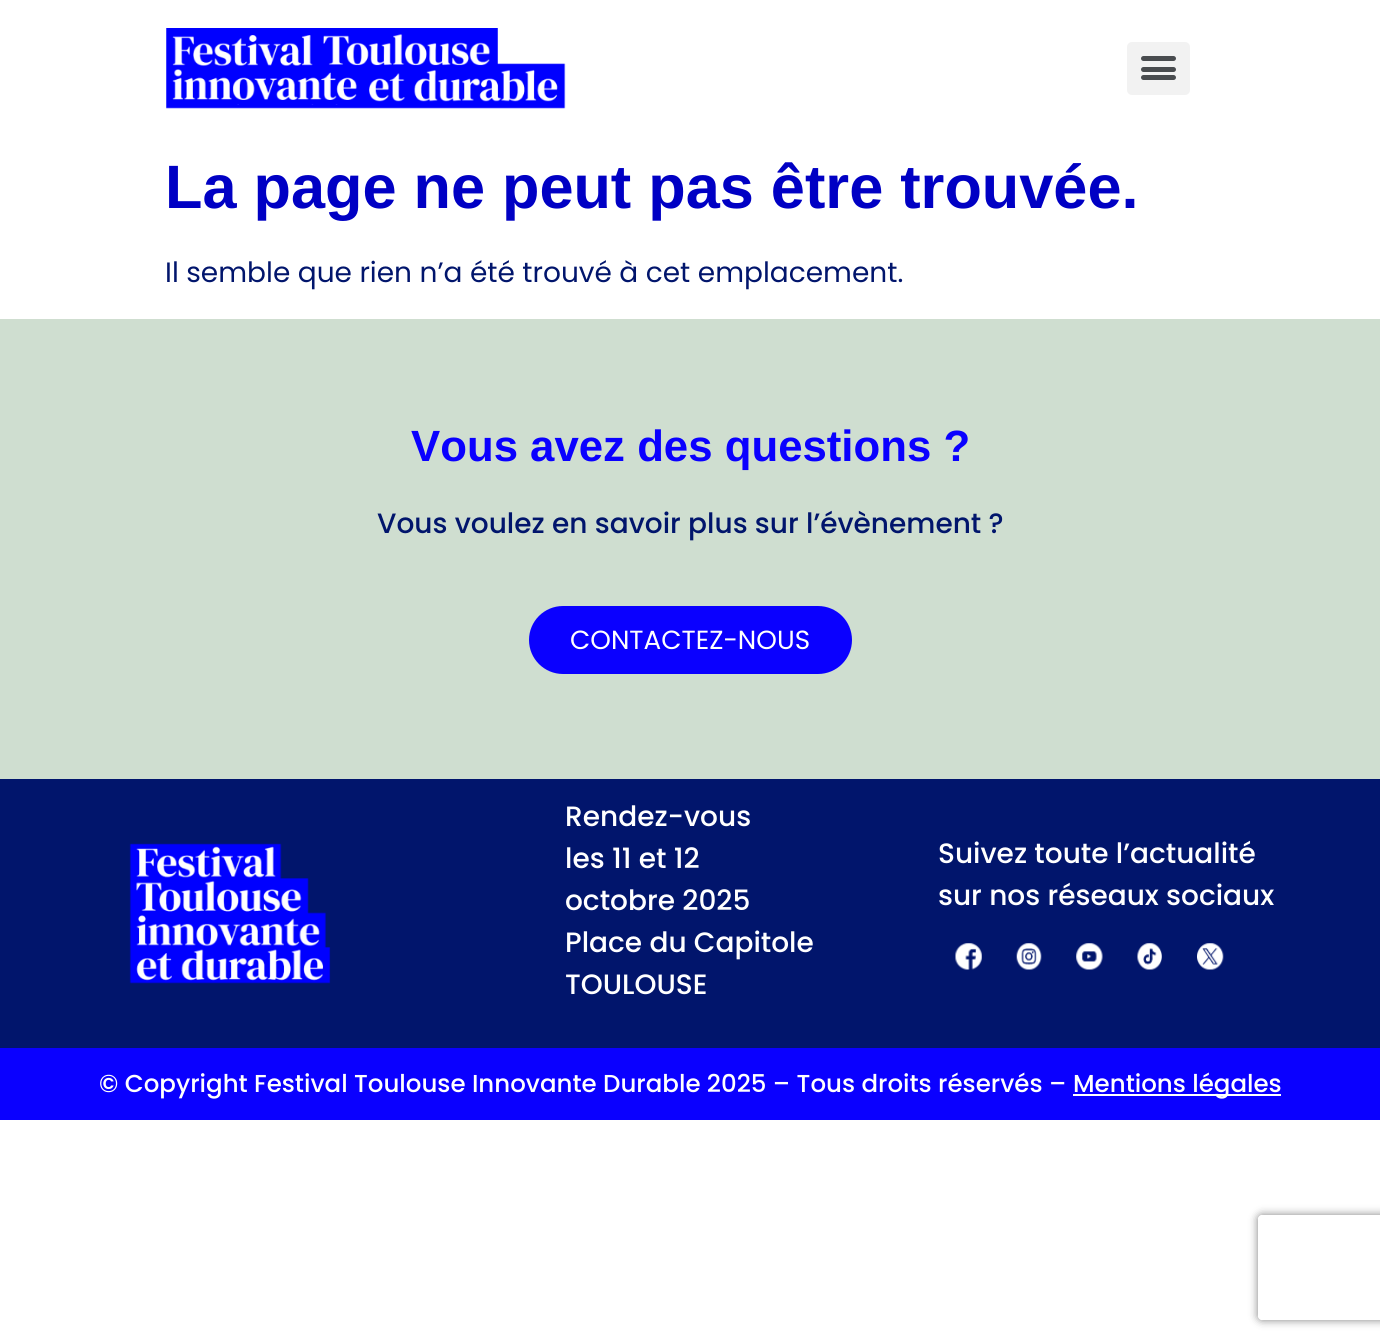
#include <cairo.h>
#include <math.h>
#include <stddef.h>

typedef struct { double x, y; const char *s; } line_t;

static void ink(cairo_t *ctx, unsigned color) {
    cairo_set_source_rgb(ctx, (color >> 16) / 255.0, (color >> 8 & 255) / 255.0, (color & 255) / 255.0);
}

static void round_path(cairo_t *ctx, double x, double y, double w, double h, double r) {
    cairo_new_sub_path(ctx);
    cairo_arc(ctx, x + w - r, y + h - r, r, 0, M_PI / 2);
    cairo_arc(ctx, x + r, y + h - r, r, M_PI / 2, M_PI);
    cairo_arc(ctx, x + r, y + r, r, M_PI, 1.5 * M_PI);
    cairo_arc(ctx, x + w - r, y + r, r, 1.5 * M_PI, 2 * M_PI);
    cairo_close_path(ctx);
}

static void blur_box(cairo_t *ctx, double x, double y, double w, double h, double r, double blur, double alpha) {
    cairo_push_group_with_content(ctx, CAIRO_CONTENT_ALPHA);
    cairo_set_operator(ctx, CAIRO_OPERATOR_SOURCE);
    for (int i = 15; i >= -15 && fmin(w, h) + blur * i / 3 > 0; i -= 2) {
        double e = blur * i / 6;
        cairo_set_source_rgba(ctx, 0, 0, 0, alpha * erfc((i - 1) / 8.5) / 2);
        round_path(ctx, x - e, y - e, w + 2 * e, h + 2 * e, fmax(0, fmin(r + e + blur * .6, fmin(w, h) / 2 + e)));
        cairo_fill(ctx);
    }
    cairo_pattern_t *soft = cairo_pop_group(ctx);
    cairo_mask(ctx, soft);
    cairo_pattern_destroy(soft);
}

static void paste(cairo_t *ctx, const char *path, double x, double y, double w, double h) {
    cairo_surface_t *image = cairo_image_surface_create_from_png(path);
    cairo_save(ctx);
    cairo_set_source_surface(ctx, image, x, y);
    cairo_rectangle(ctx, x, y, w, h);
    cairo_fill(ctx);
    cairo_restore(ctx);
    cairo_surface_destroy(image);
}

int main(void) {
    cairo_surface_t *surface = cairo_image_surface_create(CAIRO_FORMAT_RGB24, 1380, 1344);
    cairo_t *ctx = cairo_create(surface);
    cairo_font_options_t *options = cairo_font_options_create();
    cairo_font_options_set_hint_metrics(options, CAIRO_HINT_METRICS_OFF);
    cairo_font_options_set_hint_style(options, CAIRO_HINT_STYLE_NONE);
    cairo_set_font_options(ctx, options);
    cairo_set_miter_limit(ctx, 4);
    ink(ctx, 0xFFFFFF);
    cairo_paint(ctx);
    paste(ctx, "media/1.png", 166, 28, 400, 81);
    ink(ctx, 0xF2F2F2);
    round_path(ctx, 1127, 42, 63, 53, 5);
    cairo_fill(ctx);
    ink(ctx, 0x494C4F);
    round_path(ctx, 1141, 67, 35, 5, 2.5);
    cairo_fill(ctx);
    round_path(ctx, 1141, 56, 35, 5, 2.5);
    cairo_fill(ctx);
    round_path(ctx, 1141, 75, 35, 5, 2.5);
    cairo_fill(ctx);
    cairo_select_font_face(ctx, "Liberation Sans", CAIRO_FONT_SLANT_NORMAL, CAIRO_FONT_WEIGHT_BOLD);
    cairo_set_font_size(ctx, 61.25);
    ink(ctx, 0x0000C4);
    cairo_move_to(ctx, 165, 208);
    cairo_show_text(ctx, "La page ne peut pas être trouvée.");
    cairo_select_font_face(ctx, "Poppins", CAIRO_FONT_SLANT_NORMAL, CAIRO_FONT_WEIGHT_NORMAL);
    cairo_set_font_size(ctx, 28);
    ink(ctx, 0x01156C);
    cairo_move_to(ctx, 165, 282);
    cairo_show_text(ctx, "Il semble que rien n’a été trouvé à cet emplacement.");
    ink(ctx, 0xCFDED0);
    cairo_rectangle(ctx, 0, 319, 1380, 460);
    cairo_fill(ctx);
    cairo_select_font_face(ctx, "Liberation Sans", CAIRO_FONT_SLANT_NORMAL, CAIRO_FONT_WEIGHT_BOLD);
    cairo_set_font_size(ctx, 43.75);
    ink(ctx, 0x0A00FF);
    cairo_move_to(ctx, 411, 461);
    cairo_show_text(ctx, "Vous avez des questions ?");
    cairo_select_font_face(ctx, "Poppins Medium", CAIRO_FONT_SLANT_NORMAL, CAIRO_FONT_WEIGHT_NORMAL);
    cairo_set_font_size(ctx, 28);
    ink(ctx, 0x01156C);
    cairo_move_to(ctx, 377, 533);
    cairo_show_text(ctx, "Vous voulez en savoir plus sur l’évènement ?");
    ink(ctx, 0x0A00FF);
    round_path(ctx, 529, 606, 323, 68, 34);
    cairo_fill(ctx);
    cairo_select_font_face(ctx, "Poppins", CAIRO_FONT_SLANT_NORMAL, CAIRO_FONT_WEIGHT_NORMAL);
    cairo_set_font_size(ctx, 26.25);
    ink(ctx, 0xFFFFFF);
    cairo_move_to(ctx, 570, 649);
    cairo_show_text(ctx, "CONTACTEZ-NOUS");
    ink(ctx, 0x01156C);
    cairo_rectangle(ctx, 0, 779, 1380, 269);
    cairo_fill(ctx);
    paste(ctx, "media/2.png", 129, 843, 202, 141);
    cairo_select_font_face(ctx, "Poppins Medium", CAIRO_FONT_SLANT_NORMAL, CAIRO_FONT_WEIGHT_NORMAL);
    cairo_set_font_size(ctx, 28);
    ink(ctx, 0xFFFFFF);
    {
        static const line_t items[] = {
            {565, 826, "Rendez-vous"},
            {565, 868, "les 11 et 12"},
            {565, 910, "octobre 2025"},
            {565, 952, "Place du Capitole"},
            {565, 994, "TOULOUSE"},
            {938, 863, "Suivez toute l’actualité"},
            {938, 905, "sur nos réseaux sociaux"},
        };
        for (size_t i = 0; i < sizeof items / sizeof *items; i++) {
            cairo_move_to(ctx, items[i].x, items[i].y);
            cairo_show_text(ctx, items[i].s);
        }
    }
    paste(ctx, "media/3.png", 955, 943, 27, 27);
    paste(ctx, "media/4.png", 1016, 943, 26, 27);
    paste(ctx, "media/5.png", 1076, 943, 27, 27);
    paste(ctx, "media/6.png", 1137, 943, 25, 27);
    paste(ctx, "media/7.png", 1197, 943, 27, 27);
    ink(ctx, 0x0A00FF);
    cairo_rectangle(ctx, 0, 1048, 1380, 72);
    cairo_fill(ctx);
    cairo_set_font_size(ctx, 24.5);
    ink(ctx, 0xFFFFFF);
    cairo_move_to(ctx, 99, 1092);
    cairo_show_text(ctx, "© Copyright Festival Toulouse Innovante Durable 2025 – Tous droits réservés –");
    cairo_rectangle(ctx, 1073, 1094, 208, 2);
    cairo_fill(ctx);
    cairo_move_to(ctx, 1073, 1092);
    cairo_show_text(ctx, "Mentions légales");
    cairo_save(ctx);
    cairo_set_fill_rule(ctx, CAIRO_FILL_RULE_EVEN_ODD);
    cairo_new_path(ctx);
    cairo_move_to(ctx, 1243, 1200);
    cairo_line_to(ctx, 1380, 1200);
    cairo_line_to(ctx, 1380, 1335);
    cairo_line_to(ctx, 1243, 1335);
    cairo_close_path(ctx);
    cairo_move_to(ctx, 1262, 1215);
    cairo_line_to(ctx, 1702, 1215);
    cairo_curve_to(ctx, 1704, 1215, 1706, 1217, 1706, 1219);
    cairo_line_to(ctx, 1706, 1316);
    cairo_curve_to(ctx, 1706, 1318, 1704, 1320, 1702, 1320);
    cairo_line_to(ctx, 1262, 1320);
    cairo_curve_to(ctx, 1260, 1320, 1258, 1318, 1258, 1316);
    cairo_line_to(ctx, 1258, 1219);
    cairo_curve_to(ctx, 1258, 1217, 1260, 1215, 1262, 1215);
    cairo_close_path(ctx);
    cairo_clip(ctx);
    ink(ctx, 0x808080);
    blur_box(ctx, 1258, 1215, 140, 105, 4, 4.5, 1);
    cairo_restore(ctx);
    cairo_surface_write_to_png(surface, "image.png");
    cairo_font_options_destroy(options);
    cairo_destroy(ctx);
    cairo_surface_destroy(surface);
    return 0;
}
